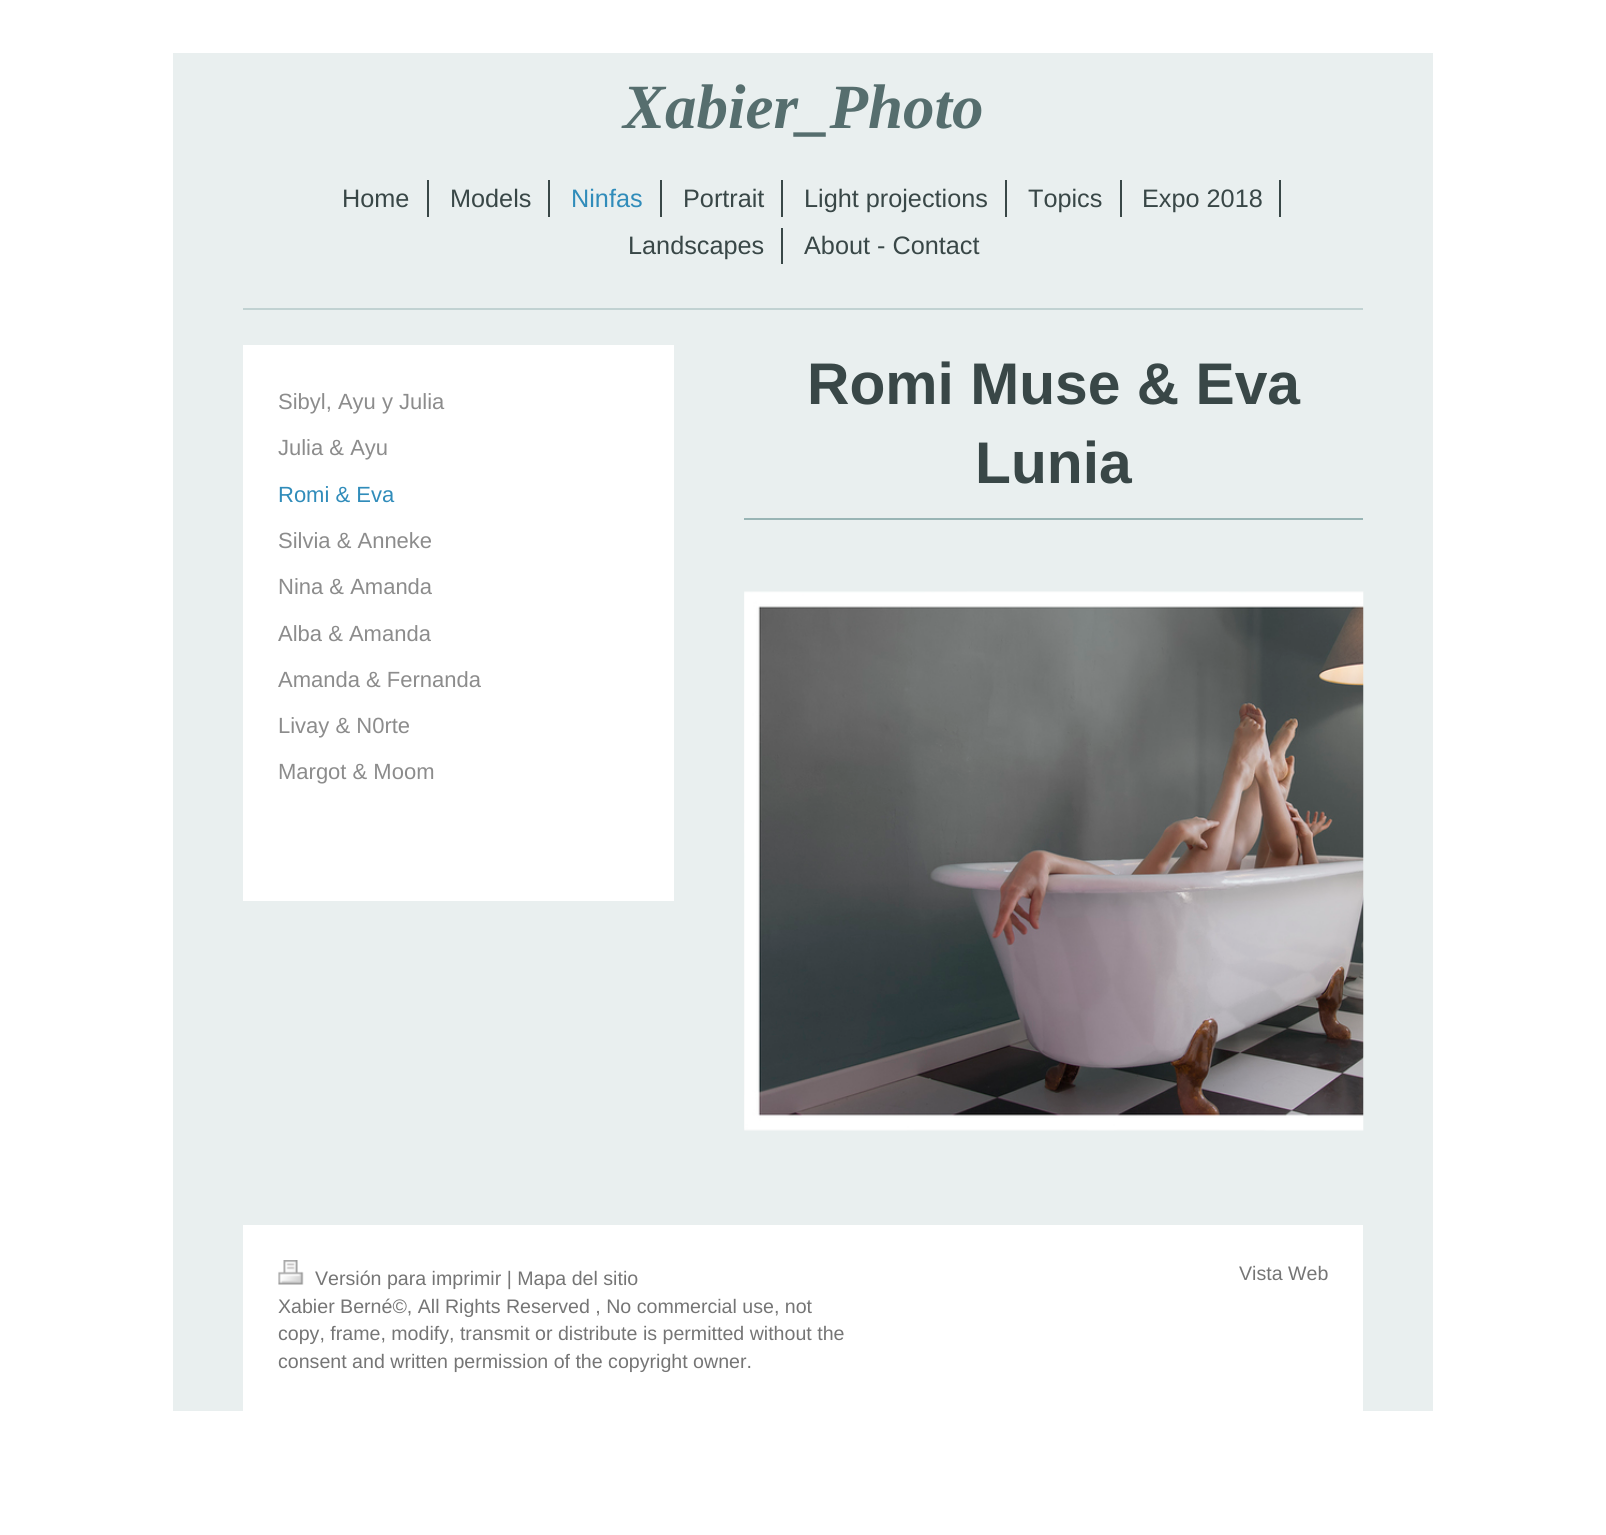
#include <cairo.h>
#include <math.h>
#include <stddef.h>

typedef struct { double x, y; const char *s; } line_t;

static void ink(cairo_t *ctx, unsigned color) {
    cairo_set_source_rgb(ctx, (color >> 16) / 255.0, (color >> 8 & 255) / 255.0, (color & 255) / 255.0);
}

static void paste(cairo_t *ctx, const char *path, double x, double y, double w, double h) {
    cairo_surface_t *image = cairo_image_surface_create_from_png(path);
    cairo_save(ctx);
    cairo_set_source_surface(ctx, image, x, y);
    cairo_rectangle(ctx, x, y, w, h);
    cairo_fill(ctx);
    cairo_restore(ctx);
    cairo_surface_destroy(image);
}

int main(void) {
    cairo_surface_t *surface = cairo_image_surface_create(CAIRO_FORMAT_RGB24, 1606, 1535);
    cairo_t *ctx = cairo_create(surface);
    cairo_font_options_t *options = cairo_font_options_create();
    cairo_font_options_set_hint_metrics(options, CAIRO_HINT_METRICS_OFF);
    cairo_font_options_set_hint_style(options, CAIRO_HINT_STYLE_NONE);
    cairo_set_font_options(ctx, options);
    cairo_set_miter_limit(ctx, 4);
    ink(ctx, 0xFFFFFF);
    cairo_paint(ctx);
    ink(ctx, 0xE9EFEF);
    cairo_rectangle(ctx, 173, 53, 1260, 1358);
    cairo_fill(ctx);
    cairo_select_font_face(ctx, "Liberation Serif", CAIRO_FONT_SLANT_ITALIC, CAIRO_FONT_WEIGHT_BOLD);
    cairo_set_font_size(ctx, 63);
    ink(ctx, 0x566E6E);
    cairo_move_to(ctx, 623, 128);
    cairo_show_text(ctx, "Xabier_Photo");
    ink(ctx, 0xC1D2D2);
    cairo_rectangle(ctx, 243, 308, 1120, 2);
    cairo_fill(ctx);
    ink(ctx, 0x394747);
    cairo_rectangle(ctx, 427, 180, 2, 37);
    cairo_fill(ctx);
    cairo_select_font_face(ctx, "Liberation Sans", CAIRO_FONT_SLANT_NORMAL, CAIRO_FONT_WEIGHT_NORMAL);
    cairo_set_font_size(ctx, 25.25);
    cairo_move_to(ctx, 342, 207);
    cairo_show_text(ctx, "Home");
    cairo_rectangle(ctx, 548, 180, 2, 37);
    cairo_fill(ctx);
    cairo_move_to(ctx, 450, 207);
    cairo_show_text(ctx, "Models");
    cairo_rectangle(ctx, 660, 180, 2, 37);
    cairo_fill(ctx);
    ink(ctx, 0x308CBA);
    cairo_move_to(ctx, 571, 207);
    cairo_show_text(ctx, "Ninfas");
    ink(ctx, 0x394747);
    cairo_rectangle(ctx, 781, 180, 2, 37);
    cairo_fill(ctx);
    cairo_move_to(ctx, 683, 207);
    cairo_show_text(ctx, "Portrait");
    cairo_rectangle(ctx, 1005, 180, 2, 37);
    cairo_fill(ctx);
    cairo_move_to(ctx, 804, 207);
    cairo_show_text(ctx, "Light projections");
    cairo_rectangle(ctx, 1120, 180, 2, 37);
    cairo_fill(ctx);
    cairo_move_to(ctx, 1028, 207);
    cairo_show_text(ctx, "Topics");
    cairo_rectangle(ctx, 1279, 180, 2, 37);
    cairo_fill(ctx);
    cairo_move_to(ctx, 1142, 207);
    cairo_show_text(ctx, "Expo 2018");
    cairo_rectangle(ctx, 781, 228, 2, 36);
    cairo_fill(ctx);
    cairo_move_to(ctx, 628, 254);
    cairo_show_text(ctx, "Landscapes");
    cairo_move_to(ctx, 804, 254);
    cairo_show_text(ctx, "About - Contact");
    ink(ctx, 0xFFFFFF);
    cairo_rectangle(ctx, 243, 345, 431, 556);
    cairo_fill(ctx);
    cairo_set_font_size(ctx, 22);
    ink(ctx, 0x8C8C8C);
    cairo_move_to(ctx, 278, 409);
    cairo_show_text(ctx, "Sibyl, Ayu y Julia");
    cairo_move_to(ctx, 278, 455);
    cairo_show_text(ctx, "Julia & Ayu");
    ink(ctx, 0x308CBA);
    cairo_move_to(ctx, 278, 502);
    cairo_show_text(ctx, "Romi & Eva");
    ink(ctx, 0x8C8C8C);
    {
        static const line_t items[] = {
            {278, 548, "Silvia & Anneke"},
            {278, 594, "Nina & Amanda"},
            {278, 641, "Alba & Amanda"},
            {278, 687, "Amanda & Fernanda"},
            {278, 733, "Livay & N0rte"},
            {278, 779, "Margot & Moom"},
        };
        for (size_t i = 0; i < sizeof items / sizeof *items; i++) {
            cairo_move_to(ctx, items[i].x, items[i].y);
            cairo_show_text(ctx, items[i].s);
        }
    }
    cairo_select_font_face(ctx, "Liberation Sans", CAIRO_FONT_SLANT_NORMAL, CAIRO_FONT_WEIGHT_BOLD);
    cairo_set_font_size(ctx, 58.75);
    ink(ctx, 0x394747);
    cairo_move_to(ctx, 807, 404);
    cairo_show_text(ctx, "Romi Muse & Eva");
    cairo_move_to(ctx, 975, 483);
    cairo_show_text(ctx, "Lunia");
    ink(ctx, 0x99B5B5);
    cairo_rectangle(ctx, 744, 518, 619, 2);
    cairo_fill(ctx);
    paste(ctx, "media/1.png", 744, 591, 620, 540);
    ink(ctx, 0xFFFFFF);
    cairo_rectangle(ctx, 243, 1225, 1120, 186);
    cairo_fill(ctx);
    paste(ctx, "media/2.png", 278, 1260, 26, 25);
    cairo_select_font_face(ctx, "Liberation Sans", CAIRO_FONT_SLANT_NORMAL, CAIRO_FONT_WEIGHT_NORMAL);
    cairo_set_font_size(ctx, 19.6);
    ink(ctx, 0x757575);
    {
        static const line_t items[] = {
            {315, 1285, "Versión para imprimir | Mapa del sitio"},
            {278, 1313, "Xabier Berné©, All Rights Reserved , No commercial use, not"},
            {278, 1340, "copy, frame, modify, transmit or distribute is permitted without the"},
            {278, 1368, "consent and written permission of the copyright owner."},
            {1239, 1280, "Vista Web"},
        };
        for (size_t i = 0; i < sizeof items / sizeof *items; i++) {
            cairo_move_to(ctx, items[i].x, items[i].y);
            cairo_show_text(ctx, items[i].s);
        }
    }
    cairo_surface_write_to_png(surface, "image.png");
    cairo_font_options_destroy(options);
    cairo_destroy(ctx);
    cairo_surface_destroy(surface);
    return 0;
}
